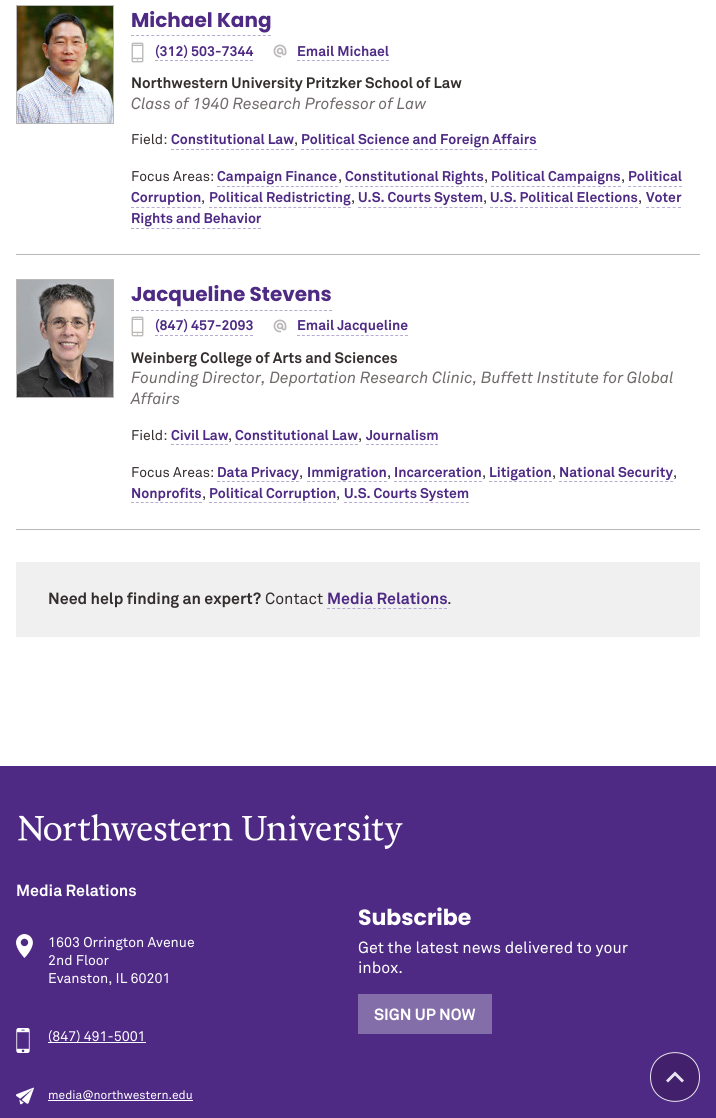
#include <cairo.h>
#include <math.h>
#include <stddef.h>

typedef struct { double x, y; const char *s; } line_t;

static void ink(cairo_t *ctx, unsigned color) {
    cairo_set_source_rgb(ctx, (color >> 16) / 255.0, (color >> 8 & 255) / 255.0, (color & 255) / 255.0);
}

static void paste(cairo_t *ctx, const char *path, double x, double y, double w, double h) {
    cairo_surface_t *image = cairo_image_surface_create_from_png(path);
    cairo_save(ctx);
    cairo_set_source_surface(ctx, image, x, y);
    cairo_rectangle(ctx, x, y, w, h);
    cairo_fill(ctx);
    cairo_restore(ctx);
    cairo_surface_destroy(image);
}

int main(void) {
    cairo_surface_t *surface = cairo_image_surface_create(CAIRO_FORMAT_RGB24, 716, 1118);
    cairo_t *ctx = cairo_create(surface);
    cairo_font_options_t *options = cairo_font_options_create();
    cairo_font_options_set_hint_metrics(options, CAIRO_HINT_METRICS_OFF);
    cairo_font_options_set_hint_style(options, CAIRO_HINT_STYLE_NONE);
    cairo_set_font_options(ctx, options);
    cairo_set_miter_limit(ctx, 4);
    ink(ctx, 0xFFFFFF);
    cairo_paint(ctx);
    ink(ctx, 0xBBB8B8);
    cairo_rectangle(ctx, 16, 254, 684, 1);
    cairo_fill(ctx);
    cairo_rectangle(ctx, 16.5, 5.5, 97, 118);
    cairo_set_line_width(ctx, 1);
    cairo_stroke(ctx);
    paste(ctx, "media/1.png", 17, 6, 96, 117);
    cairo_select_font_face(ctx, "Poppins", CAIRO_FONT_SLANT_NORMAL, CAIRO_FONT_WEIGHT_BOLD);
    cairo_set_font_size(ctx, 20);
    ink(ctx, 0x4E2A84);
    cairo_move_to(ctx, 131, 27);
    cairo_show_text(ctx, "Michael Kang");
    cairo_new_path(ctx);
    cairo_move_to(ctx, 131, 35.5);
    cairo_line_to(ctx, 271, 35.5);
    ink(ctx, 0xB6ACD1);
    cairo_set_dash(ctx, (double[]){3, 2.07}, 2, 0);
    cairo_stroke(ctx);
    paste(ctx, "media/2.png", 131, 42, 13, 21);
    cairo_select_font_face(ctx, "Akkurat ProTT", CAIRO_FONT_SLANT_NORMAL, CAIRO_FONT_WEIGHT_BOLD);
    cairo_set_font_size(ctx, 14);
    ink(ctx, 0x4E2A84);
    cairo_move_to(ctx, 155, 56);
    cairo_show_text(ctx, "(312) 503-7344");
    cairo_new_path(ctx);
    cairo_move_to(ctx, 155, 60.5);
    cairo_line_to(ctx, 253, 60.5);
    ink(ctx, 0xB6ACD1);
    cairo_set_dash(ctx, (double[]){3, 2}, 2, 0);
    cairo_stroke(ctx);
    paste(ctx, "media/3.png", 273, 44, 14, 14);
    ink(ctx, 0x4E2A84);
    cairo_move_to(ctx, 297, 56);
    cairo_show_text(ctx, "Email Michael");
    cairo_new_path(ctx);
    cairo_move_to(ctx, 297, 60.5);
    cairo_line_to(ctx, 389, 60.5);
    ink(ctx, 0xB6ACD1);
    cairo_set_dash(ctx, (double[]){3, 1.94}, 2, 0);
    cairo_stroke(ctx);
    cairo_set_font_size(ctx, 15);
    ink(ctx, 0x342F2E);
    cairo_move_to(ctx, 131, 88);
    cairo_show_text(ctx, "Northwestern University Pritzker School of Law");
    cairo_select_font_face(ctx, "Akkurat ProTT", CAIRO_FONT_SLANT_ITALIC, CAIRO_FONT_WEIGHT_NORMAL);
    cairo_set_font_size(ctx, 16);
    ink(ctx, 0x716C6B);
    cairo_move_to(ctx, 131, 109);
    cairo_show_text(ctx, "Class of 1940 Research Professor of Law");
    cairo_select_font_face(ctx, "Akkurat ProTT", CAIRO_FONT_SLANT_NORMAL, CAIRO_FONT_WEIGHT_NORMAL);
    cairo_set_font_size(ctx, 14);
    ink(ctx, 0x342F2E);
    cairo_move_to(ctx, 131, 144);
    cairo_show_text(ctx, "Field:");
    cairo_select_font_face(ctx, "Akkurat ProTT", CAIRO_FONT_SLANT_NORMAL, CAIRO_FONT_WEIGHT_BOLD);
    ink(ctx, 0x4E2A84);
    cairo_move_to(ctx, 171, 144);
    cairo_show_text(ctx, "Constitutional Law");
    cairo_new_path(ctx);
    cairo_move_to(ctx, 171, 149.5);
    cairo_line_to(ctx, 294, 149.5);
    ink(ctx, 0xB6ACD1);
    cairo_set_dash(ctx, (double[]){3, 2}, 2, 0);
    cairo_stroke(ctx);
    cairo_select_font_face(ctx, "Akkurat ProTT", CAIRO_FONT_SLANT_NORMAL, CAIRO_FONT_WEIGHT_NORMAL);
    ink(ctx, 0x342F2E);
    cairo_move_to(ctx, 294, 144);
    cairo_show_text(ctx, ",");
    cairo_select_font_face(ctx, "Akkurat ProTT", CAIRO_FONT_SLANT_NORMAL, CAIRO_FONT_WEIGHT_BOLD);
    ink(ctx, 0x4E2A84);
    cairo_move_to(ctx, 301, 144);
    cairo_show_text(ctx, "Political Science and Foreign Affairs");
    cairo_new_path(ctx);
    cairo_move_to(ctx, 301, 149.5);
    cairo_line_to(ctx, 537, 149.5);
    ink(ctx, 0xB6ACD1);
    cairo_set_dash(ctx, (double[]){3, 1.96}, 2, 0);
    cairo_stroke(ctx);
    cairo_select_font_face(ctx, "Akkurat ProTT", CAIRO_FONT_SLANT_NORMAL, CAIRO_FONT_WEIGHT_NORMAL);
    ink(ctx, 0x342F2E);
    cairo_move_to(ctx, 131, 181);
    cairo_show_text(ctx, "Focus Areas:");
    cairo_select_font_face(ctx, "Akkurat ProTT", CAIRO_FONT_SLANT_NORMAL, CAIRO_FONT_WEIGHT_BOLD);
    ink(ctx, 0x4E2A84);
    cairo_move_to(ctx, 217, 181);
    cairo_show_text(ctx, "Campaign Finance");
    cairo_new_path(ctx);
    cairo_move_to(ctx, 217, 186.5);
    cairo_line_to(ctx, 338, 186.5);
    ink(ctx, 0xB6ACD1);
    cairo_set_dash(ctx, (double[]){3, 1.92}, 2, 0);
    cairo_stroke(ctx);
    cairo_select_font_face(ctx, "Akkurat ProTT", CAIRO_FONT_SLANT_NORMAL, CAIRO_FONT_WEIGHT_NORMAL);
    ink(ctx, 0x342F2E);
    cairo_move_to(ctx, 338, 181);
    cairo_show_text(ctx, ",");
    cairo_select_font_face(ctx, "Akkurat ProTT", CAIRO_FONT_SLANT_NORMAL, CAIRO_FONT_WEIGHT_BOLD);
    ink(ctx, 0x4E2A84);
    cairo_move_to(ctx, 345, 181);
    cairo_show_text(ctx, "Constitutional Rights");
    cairo_new_path(ctx);
    cairo_move_to(ctx, 345, 186.5);
    cairo_line_to(ctx, 484, 186.5);
    ink(ctx, 0xB6ACD1);
    cairo_set_dash(ctx, (double[]){3, 2.04}, 2, 0);
    cairo_stroke(ctx);
    cairo_select_font_face(ctx, "Akkurat ProTT", CAIRO_FONT_SLANT_NORMAL, CAIRO_FONT_WEIGHT_NORMAL);
    ink(ctx, 0x342F2E);
    cairo_move_to(ctx, 484, 181);
    cairo_show_text(ctx, ",");
    cairo_select_font_face(ctx, "Akkurat ProTT", CAIRO_FONT_SLANT_NORMAL, CAIRO_FONT_WEIGHT_BOLD);
    ink(ctx, 0x4E2A84);
    cairo_move_to(ctx, 491, 181);
    cairo_show_text(ctx, "Political Campaigns");
    cairo_new_path(ctx);
    cairo_move_to(ctx, 491, 186.5);
    cairo_line_to(ctx, 621, 186.5);
    ink(ctx, 0xB6ACD1);
    cairo_set_dash(ctx, (double[]){3, 2.08}, 2, 0);
    cairo_stroke(ctx);
    cairo_select_font_face(ctx, "Akkurat ProTT", CAIRO_FONT_SLANT_NORMAL, CAIRO_FONT_WEIGHT_NORMAL);
    ink(ctx, 0x342F2E);
    cairo_move_to(ctx, 621, 181);
    cairo_show_text(ctx, ",");
    cairo_select_font_face(ctx, "Akkurat ProTT", CAIRO_FONT_SLANT_NORMAL, CAIRO_FONT_WEIGHT_BOLD);
    ink(ctx, 0x4E2A84);
    cairo_move_to(ctx, 628, 181);
    cairo_show_text(ctx, "Political");
    cairo_new_path(ctx);
    cairo_move_to(ctx, 628, 186.5);
    cairo_line_to(ctx, 682, 186.5);
    ink(ctx, 0xB6ACD1);
    cairo_set_dash(ctx, (double[]){3, 2.1}, 2, 0);
    cairo_stroke(ctx);
    ink(ctx, 0x4E2A84);
    cairo_move_to(ctx, 131, 202);
    cairo_show_text(ctx, "Corruption");
    cairo_new_path(ctx);
    cairo_move_to(ctx, 131, 207.5);
    cairo_line_to(ctx, 201, 207.5);
    ink(ctx, 0xB6ACD1);
    cairo_set_dash(ctx, (double[]){3, 2.15}, 2, 0);
    cairo_stroke(ctx);
    cairo_select_font_face(ctx, "Akkurat ProTT", CAIRO_FONT_SLANT_NORMAL, CAIRO_FONT_WEIGHT_NORMAL);
    ink(ctx, 0x342F2E);
    cairo_move_to(ctx, 201, 202);
    cairo_show_text(ctx, ",");
    cairo_select_font_face(ctx, "Akkurat ProTT", CAIRO_FONT_SLANT_NORMAL, CAIRO_FONT_WEIGHT_BOLD);
    ink(ctx, 0x4E2A84);
    cairo_move_to(ctx, 209, 202);
    cairo_show_text(ctx, "Political Redistricting");
    cairo_new_path(ctx);
    cairo_move_to(ctx, 209, 207.5);
    cairo_line_to(ctx, 351, 207.5);
    ink(ctx, 0xB6ACD1);
    cairo_set_dash(ctx, (double[]){3, 1.96}, 2, 0);
    cairo_stroke(ctx);
    cairo_select_font_face(ctx, "Akkurat ProTT", CAIRO_FONT_SLANT_NORMAL, CAIRO_FONT_WEIGHT_NORMAL);
    ink(ctx, 0x342F2E);
    cairo_move_to(ctx, 351, 202);
    cairo_show_text(ctx, ",");
    cairo_select_font_face(ctx, "Akkurat ProTT", CAIRO_FONT_SLANT_NORMAL, CAIRO_FONT_WEIGHT_BOLD);
    ink(ctx, 0x4E2A84);
    cairo_move_to(ctx, 358, 202);
    cairo_show_text(ctx, "U.S. Courts System");
    cairo_new_path(ctx);
    cairo_move_to(ctx, 358, 207.5);
    cairo_line_to(ctx, 483, 207.5);
    ink(ctx, 0xB6ACD1);
    cairo_set_dash(ctx, (double[]){3, 2.08}, 2, 0);
    cairo_stroke(ctx);
    cairo_select_font_face(ctx, "Akkurat ProTT", CAIRO_FONT_SLANT_NORMAL, CAIRO_FONT_WEIGHT_NORMAL);
    ink(ctx, 0x342F2E);
    cairo_move_to(ctx, 483, 202);
    cairo_show_text(ctx, ",");
    cairo_select_font_face(ctx, "Akkurat ProTT", CAIRO_FONT_SLANT_NORMAL, CAIRO_FONT_WEIGHT_BOLD);
    ink(ctx, 0x4E2A84);
    cairo_move_to(ctx, 490, 202);
    cairo_show_text(ctx, "U.S. Political Elections");
    cairo_new_path(ctx);
    cairo_move_to(ctx, 490, 207.5);
    cairo_line_to(ctx, 638, 207.5);
    ink(ctx, 0xB6ACD1);
    cairo_set_dash(ctx, (double[]){3, 2}, 2, 0);
    cairo_stroke(ctx);
    cairo_select_font_face(ctx, "Akkurat ProTT", CAIRO_FONT_SLANT_NORMAL, CAIRO_FONT_WEIGHT_NORMAL);
    ink(ctx, 0x342F2E);
    cairo_move_to(ctx, 638, 202);
    cairo_show_text(ctx, ",");
    cairo_select_font_face(ctx, "Akkurat ProTT", CAIRO_FONT_SLANT_NORMAL, CAIRO_FONT_WEIGHT_BOLD);
    ink(ctx, 0x4E2A84);
    cairo_move_to(ctx, 646, 202);
    cairo_show_text(ctx, "Voter");
    cairo_new_path(ctx);
    cairo_move_to(ctx, 646, 207.5);
    cairo_line_to(ctx, 681, 207.5);
    ink(ctx, 0xB6ACD1);
    cairo_set_dash(ctx, (double[]){3, 2.33}, 2, 0);
    cairo_stroke(ctx);
    ink(ctx, 0x4E2A84);
    cairo_move_to(ctx, 131, 223);
    cairo_show_text(ctx, "Rights and Behavior");
    cairo_new_path(ctx);
    cairo_move_to(ctx, 131, 228.5);
    cairo_line_to(ctx, 261, 228.5);
    ink(ctx, 0xB6ACD1);
    cairo_set_dash(ctx, (double[]){3, 2.08}, 2, 0);
    cairo_stroke(ctx);
    ink(ctx, 0xBBB8B8);
    cairo_rectangle(ctx, 16, 529, 684, 1);
    cairo_fill(ctx);
    cairo_rectangle(ctx, 16.5, 279.5, 97, 118);
    cairo_set_dash(ctx, NULL, 0, 0);
    cairo_stroke(ctx);
    paste(ctx, "media/4.png", 17, 280, 96, 117);
    cairo_select_font_face(ctx, "Poppins", CAIRO_FONT_SLANT_NORMAL, CAIRO_FONT_WEIGHT_BOLD);
    cairo_set_font_size(ctx, 20);
    ink(ctx, 0x4E2A84);
    cairo_move_to(ctx, 131, 301);
    cairo_show_text(ctx, "Jacqueline Stevens");
    cairo_new_path(ctx);
    cairo_move_to(ctx, 131, 310.5);
    cairo_line_to(ctx, 332, 310.5);
    ink(ctx, 0xB6ACD1);
    cairo_set_dash(ctx, (double[]){3, 1.95}, 2, 0);
    cairo_stroke(ctx);
    paste(ctx, "media/2.png", 131, 316, 13, 21);
    cairo_select_font_face(ctx, "Akkurat ProTT", CAIRO_FONT_SLANT_NORMAL, CAIRO_FONT_WEIGHT_BOLD);
    cairo_set_font_size(ctx, 14);
    ink(ctx, 0x4E2A84);
    cairo_move_to(ctx, 155, 330);
    cairo_show_text(ctx, "(847) 457-2093");
    cairo_new_path(ctx);
    cairo_move_to(ctx, 155, 335.5);
    cairo_line_to(ctx, 253, 335.5);
    ink(ctx, 0xB6ACD1);
    cairo_set_dash(ctx, (double[]){3, 2}, 2, 0);
    cairo_stroke(ctx);
    paste(ctx, "media/3.png", 273, 319, 14, 14);
    ink(ctx, 0x4E2A84);
    cairo_move_to(ctx, 297, 330);
    cairo_show_text(ctx, "Email Jacqueline");
    cairo_new_path(ctx);
    cairo_move_to(ctx, 297, 335.5);
    cairo_line_to(ctx, 408, 335.5);
    ink(ctx, 0xB6ACD1);
    cairo_set_dash(ctx, (double[]){3, 1.91}, 2, 0);
    cairo_stroke(ctx);
    cairo_set_font_size(ctx, 15);
    ink(ctx, 0x342F2E);
    cairo_move_to(ctx, 131, 363);
    cairo_show_text(ctx, "Weinberg College of Arts and Sciences");
    cairo_select_font_face(ctx, "Akkurat ProTT", CAIRO_FONT_SLANT_ITALIC, CAIRO_FONT_WEIGHT_NORMAL);
    cairo_set_font_size(ctx, 16);
    ink(ctx, 0x716C6B);
    cairo_move_to(ctx, 131, 383);
    cairo_show_text(ctx, "Founding Director, Deportation Research Clinic, Buffett Institute for Global");
    cairo_move_to(ctx, 131, 404);
    cairo_show_text(ctx, "Affairs");
    cairo_select_font_face(ctx, "Akkurat ProTT", CAIRO_FONT_SLANT_NORMAL, CAIRO_FONT_WEIGHT_NORMAL);
    cairo_set_font_size(ctx, 14);
    ink(ctx, 0x342F2E);
    cairo_move_to(ctx, 131, 440);
    cairo_show_text(ctx, "Field:");
    cairo_select_font_face(ctx, "Akkurat ProTT", CAIRO_FONT_SLANT_NORMAL, CAIRO_FONT_WEIGHT_BOLD);
    ink(ctx, 0x4E2A84);
    cairo_move_to(ctx, 171, 440);
    cairo_show_text(ctx, "Civil Law");
    cairo_new_path(ctx);
    cairo_move_to(ctx, 171, 444.5);
    cairo_line_to(ctx, 228, 444.5);
    ink(ctx, 0xB6ACD1);
    cairo_stroke(ctx);
    cairo_select_font_face(ctx, "Akkurat ProTT", CAIRO_FONT_SLANT_NORMAL, CAIRO_FONT_WEIGHT_NORMAL);
    ink(ctx, 0x342F2E);
    cairo_move_to(ctx, 228, 440);
    cairo_show_text(ctx, ",");
    cairo_select_font_face(ctx, "Akkurat ProTT", CAIRO_FONT_SLANT_NORMAL, CAIRO_FONT_WEIGHT_BOLD);
    ink(ctx, 0x4E2A84);
    cairo_move_to(ctx, 235, 440);
    cairo_show_text(ctx, "Constitutional Law");
    cairo_new_path(ctx);
    cairo_move_to(ctx, 235, 444.5);
    cairo_line_to(ctx, 358, 444.5);
    ink(ctx, 0xB6ACD1);
    cairo_set_dash(ctx, (double[]){3, 2}, 2, 0);
    cairo_stroke(ctx);
    cairo_select_font_face(ctx, "Akkurat ProTT", CAIRO_FONT_SLANT_NORMAL, CAIRO_FONT_WEIGHT_NORMAL);
    ink(ctx, 0x342F2E);
    cairo_move_to(ctx, 358, 440);
    cairo_show_text(ctx, ",");
    cairo_select_font_face(ctx, "Akkurat ProTT", CAIRO_FONT_SLANT_NORMAL, CAIRO_FONT_WEIGHT_BOLD);
    ink(ctx, 0x4E2A84);
    cairo_move_to(ctx, 366, 440);
    cairo_show_text(ctx, "Journalism");
    cairo_new_path(ctx);
    cairo_move_to(ctx, 366, 444.5);
    cairo_line_to(ctx, 438, 444.5);
    ink(ctx, 0xB6ACD1);
    cairo_set_dash(ctx, (double[]){3, 1.93}, 2, 0);
    cairo_stroke(ctx);
    cairo_select_font_face(ctx, "Akkurat ProTT", CAIRO_FONT_SLANT_NORMAL, CAIRO_FONT_WEIGHT_NORMAL);
    ink(ctx, 0x342F2E);
    cairo_move_to(ctx, 131, 477);
    cairo_show_text(ctx, "Focus Areas:");
    cairo_select_font_face(ctx, "Akkurat ProTT", CAIRO_FONT_SLANT_NORMAL, CAIRO_FONT_WEIGHT_BOLD);
    ink(ctx, 0x4E2A84);
    cairo_move_to(ctx, 217, 477);
    cairo_show_text(ctx, "Data Privacy");
    cairo_new_path(ctx);
    cairo_move_to(ctx, 217, 481.5);
    cairo_line_to(ctx, 299, 481.5);
    ink(ctx, 0xB6ACD1);
    cairo_set_dash(ctx, (double[]){3, 1.94}, 2, 0);
    cairo_stroke(ctx);
    cairo_select_font_face(ctx, "Akkurat ProTT", CAIRO_FONT_SLANT_NORMAL, CAIRO_FONT_WEIGHT_NORMAL);
    ink(ctx, 0x342F2E);
    cairo_move_to(ctx, 299, 477);
    cairo_show_text(ctx, ",");
    cairo_select_font_face(ctx, "Akkurat ProTT", CAIRO_FONT_SLANT_NORMAL, CAIRO_FONT_WEIGHT_BOLD);
    ink(ctx, 0x4E2A84);
    cairo_move_to(ctx, 307, 477);
    cairo_show_text(ctx, "Immigration");
    cairo_new_path(ctx);
    cairo_move_to(ctx, 307, 481.5);
    cairo_line_to(ctx, 387, 481.5);
    ink(ctx, 0xB6ACD1);
    cairo_set_dash(ctx, (double[]){3, 2.13}, 2, 0);
    cairo_stroke(ctx);
    cairo_select_font_face(ctx, "Akkurat ProTT", CAIRO_FONT_SLANT_NORMAL, CAIRO_FONT_WEIGHT_NORMAL);
    ink(ctx, 0x342F2E);
    cairo_move_to(ctx, 387, 477);
    cairo_show_text(ctx, ",");
    cairo_select_font_face(ctx, "Akkurat ProTT", CAIRO_FONT_SLANT_NORMAL, CAIRO_FONT_WEIGHT_BOLD);
    ink(ctx, 0x4E2A84);
    cairo_move_to(ctx, 394, 477);
    cairo_show_text(ctx, "Incarceration");
    cairo_new_path(ctx);
    cairo_move_to(ctx, 394, 481.5);
    cairo_line_to(ctx, 482, 481.5);
    ink(ctx, 0xB6ACD1);
    cairo_set_dash(ctx, (double[]){3, 2}, 2, 0);
    cairo_stroke(ctx);
    cairo_select_font_face(ctx, "Akkurat ProTT", CAIRO_FONT_SLANT_NORMAL, CAIRO_FONT_WEIGHT_NORMAL);
    ink(ctx, 0x342F2E);
    cairo_move_to(ctx, 482, 477);
    cairo_show_text(ctx, ",");
    cairo_select_font_face(ctx, "Akkurat ProTT", CAIRO_FONT_SLANT_NORMAL, CAIRO_FONT_WEIGHT_BOLD);
    ink(ctx, 0x4E2A84);
    cairo_move_to(ctx, 489, 477);
    cairo_show_text(ctx, "Litigation");
    cairo_new_path(ctx);
    cairo_move_to(ctx, 489, 481.5);
    cairo_line_to(ctx, 552, 481.5);
    ink(ctx, 0xB6ACD1);
    cairo_stroke(ctx);
    cairo_select_font_face(ctx, "Akkurat ProTT", CAIRO_FONT_SLANT_NORMAL, CAIRO_FONT_WEIGHT_NORMAL);
    ink(ctx, 0x342F2E);
    cairo_move_to(ctx, 552, 477);
    cairo_show_text(ctx, ",");
    cairo_select_font_face(ctx, "Akkurat ProTT", CAIRO_FONT_SLANT_NORMAL, CAIRO_FONT_WEIGHT_BOLD);
    ink(ctx, 0x4E2A84);
    cairo_move_to(ctx, 559, 477);
    cairo_show_text(ctx, "National Security");
    cairo_new_path(ctx);
    cairo_move_to(ctx, 559, 481.5);
    cairo_line_to(ctx, 673, 481.5);
    ink(ctx, 0xB6ACD1);
    cairo_set_dash(ctx, (double[]){3, 2.05}, 2, 0);
    cairo_stroke(ctx);
    cairo_select_font_face(ctx, "Akkurat ProTT", CAIRO_FONT_SLANT_NORMAL, CAIRO_FONT_WEIGHT_NORMAL);
    ink(ctx, 0x342F2E);
    cairo_move_to(ctx, 673, 477);
    cairo_show_text(ctx, ",");
    cairo_select_font_face(ctx, "Akkurat ProTT", CAIRO_FONT_SLANT_NORMAL, CAIRO_FONT_WEIGHT_BOLD);
    ink(ctx, 0x4E2A84);
    cairo_move_to(ctx, 131, 498);
    cairo_show_text(ctx, "Nonprofits");
    cairo_new_path(ctx);
    cairo_move_to(ctx, 131, 502.5);
    cairo_line_to(ctx, 202, 502.5);
    ink(ctx, 0xB6ACD1);
    cairo_set_dash(ctx, (double[]){3, 1.86}, 2, 0);
    cairo_stroke(ctx);
    cairo_select_font_face(ctx, "Akkurat ProTT", CAIRO_FONT_SLANT_NORMAL, CAIRO_FONT_WEIGHT_NORMAL);
    ink(ctx, 0x342F2E);
    cairo_move_to(ctx, 202, 498);
    cairo_show_text(ctx, ",");
    cairo_select_font_face(ctx, "Akkurat ProTT", CAIRO_FONT_SLANT_NORMAL, CAIRO_FONT_WEIGHT_BOLD);
    ink(ctx, 0x4E2A84);
    cairo_move_to(ctx, 209, 498);
    cairo_show_text(ctx, "Political Corruption");
    cairo_new_path(ctx);
    cairo_move_to(ctx, 209, 502.5);
    cairo_line_to(ctx, 336, 502.5);
    ink(ctx, 0xB6ACD1);
    cairo_set_dash(ctx, (double[]){3, 1.96}, 2, 0);
    cairo_stroke(ctx);
    cairo_select_font_face(ctx, "Akkurat ProTT", CAIRO_FONT_SLANT_NORMAL, CAIRO_FONT_WEIGHT_NORMAL);
    ink(ctx, 0x342F2E);
    cairo_move_to(ctx, 336, 498);
    cairo_show_text(ctx, ",");
    cairo_select_font_face(ctx, "Akkurat ProTT", CAIRO_FONT_SLANT_NORMAL, CAIRO_FONT_WEIGHT_BOLD);
    ink(ctx, 0x4E2A84);
    cairo_move_to(ctx, 344, 498);
    cairo_show_text(ctx, "U.S. Courts System");
    cairo_new_path(ctx);
    cairo_move_to(ctx, 344, 502.5);
    cairo_line_to(ctx, 469, 502.5);
    ink(ctx, 0xB6ACD1);
    cairo_set_dash(ctx, (double[]){3, 2.08}, 2, 0);
    cairo_stroke(ctx);
    ink(ctx, 0xF0F0F0);
    cairo_rectangle(ctx, 16, 562, 684, 75);
    cairo_fill(ctx);
    cairo_set_font_size(ctx, 16);
    ink(ctx, 0x342F2E);
    cairo_move_to(ctx, 48, 604);
    cairo_show_text(ctx, "Need help finding an expert?");
    cairo_select_font_face(ctx, "Akkurat ProTT", CAIRO_FONT_SLANT_NORMAL, CAIRO_FONT_WEIGHT_NORMAL);
    cairo_move_to(ctx, 265, 604);
    cairo_show_text(ctx, "Contact");
    cairo_select_font_face(ctx, "Akkurat ProTT", CAIRO_FONT_SLANT_NORMAL, CAIRO_FONT_WEIGHT_BOLD);
    ink(ctx, 0x4E2A84);
    cairo_move_to(ctx, 327, 604);
    cairo_show_text(ctx, "Media Relations");
    cairo_new_path(ctx);
    cairo_move_to(ctx, 327, 608.5);
    cairo_line_to(ctx, 447, 608.5);
    ink(ctx, 0xB6ACD1);
    cairo_set_dash(ctx, (double[]){3, 2.09}, 2, 0);
    cairo_stroke(ctx);
    cairo_select_font_face(ctx, "Akkurat ProTT", CAIRO_FONT_SLANT_NORMAL, CAIRO_FONT_WEIGHT_NORMAL);
    ink(ctx, 0x342F2E);
    cairo_move_to(ctx, 447, 604);
    cairo_show_text(ctx, ".");
    ink(ctx, 0x4E2A84);
    cairo_rectangle(ctx, 0, 766, 716, 352);
    cairo_fill(ctx);
    ink(ctx, 0x42206B);
    cairo_new_path(ctx);
    cairo_move_to(ctx, 650, 1077);
    cairo_curve_to(ctx, 650, 1044, 700, 1044, 700, 1077);
    cairo_curve_to(ctx, 700, 1110, 650, 1110, 650, 1077);
    cairo_close_path(ctx);
    cairo_fill(ctx);
    ink(ctx, 0xE9E5F0);
    cairo_new_path(ctx);
    cairo_move_to(ctx, 682, 1082.5);
    cairo_line_to(ctx, 675, 1075.5);
    cairo_line_to(ctx, 668, 1082.5);
    cairo_line_to(ctx, 666, 1080.5);
    cairo_line_to(ctx, 675, 1071.5);
    cairo_line_to(ctx, 684, 1080.5);
    cairo_close_path(ctx);
    cairo_fill(ctx);
    cairo_new_path(ctx);
    cairo_move_to(ctx, 650.5, 1077);
    cairo_curve_to(ctx, 650.5, 1044.5, 699.5, 1044.5, 699.5, 1077);
    cairo_curve_to(ctx, 699.5, 1109.5, 650.5, 1109.5, 650.5, 1077);
    cairo_close_path(ctx);
    cairo_set_dash(ctx, NULL, 0, 0);
    cairo_stroke(ctx);
    paste(ctx, "media/5.png", 18, 814, 385, 35);
    cairo_select_font_face(ctx, "Akkurat ProTT", CAIRO_FONT_SLANT_NORMAL, CAIRO_FONT_WEIGHT_BOLD);
    ink(ctx, 0xFFFFFF);
    cairo_move_to(ctx, 16, 896);
    cairo_show_text(ctx, "Media Relations");
    paste(ctx, "media/6.png", 16, 934, 17, 24);
    cairo_select_font_face(ctx, "Akkurat ProTT", CAIRO_FONT_SLANT_NORMAL, CAIRO_FONT_WEIGHT_NORMAL);
    cairo_set_font_size(ctx, 14);
    {
        static const line_t items[] = {
            {48, 947, "1603 Orrington Avenue"},
            {48, 965, "2nd Floor"},
            {48, 983, "Evanston, IL 60201"},
        };
        for (size_t i = 0; i < sizeof items / sizeof *items; i++) {
            cairo_move_to(ctx, items[i].x, items[i].y);
            cairo_show_text(ctx, items[i].s);
        }
    }
    paste(ctx, "media/7.png", 16, 1028, 14, 25);
    cairo_rectangle(ctx, 48, 1042, 98, 1);
    cairo_fill(ctx);
    cairo_move_to(ctx, 48, 1041);
    cairo_show_text(ctx, "(847) 491-5001");
    paste(ctx, "media/8.png", 16, 1087, 18, 18);
    cairo_set_font_size(ctx, 12);
    cairo_move_to(ctx, 48, 1099);
    cairo_show_text(ctx, "media@northwestern.edu");
    cairo_rectangle(ctx, 48, 1100, 145, 1);
    cairo_fill(ctx);
    cairo_select_font_face(ctx, "Poppins", CAIRO_FONT_SLANT_NORMAL, CAIRO_FONT_WEIGHT_BOLD);
    cairo_set_font_size(ctx, 22);
    cairo_move_to(ctx, 358, 925);
    cairo_show_text(ctx, "Subscribe");
    cairo_select_font_face(ctx, "Akkurat ProTT", CAIRO_FONT_SLANT_NORMAL, CAIRO_FONT_WEIGHT_NORMAL);
    cairo_set_font_size(ctx, 16);
    cairo_move_to(ctx, 358, 953);
    cairo_show_text(ctx, "Get the latest news delivered to your");
    cairo_move_to(ctx, 358, 973);
    cairo_show_text(ctx, "inbox.");
    ink(ctx, 0x836EAA);
    cairo_rectangle(ctx, 358, 994, 134, 40);
    cairo_fill(ctx);
    cairo_select_font_face(ctx, "Akkurat ProTT", CAIRO_FONT_SLANT_NORMAL, CAIRO_FONT_WEIGHT_BOLD);
    ink(ctx, 0xFFFFFF);
    cairo_move_to(ctx, 374, 1020);
    cairo_show_text(ctx, "SIGN UP NOW");
    cairo_surface_write_to_png(surface, "image.png");
    cairo_font_options_destroy(options);
    cairo_destroy(ctx);
    cairo_surface_destroy(surface);
    return 0;
}
